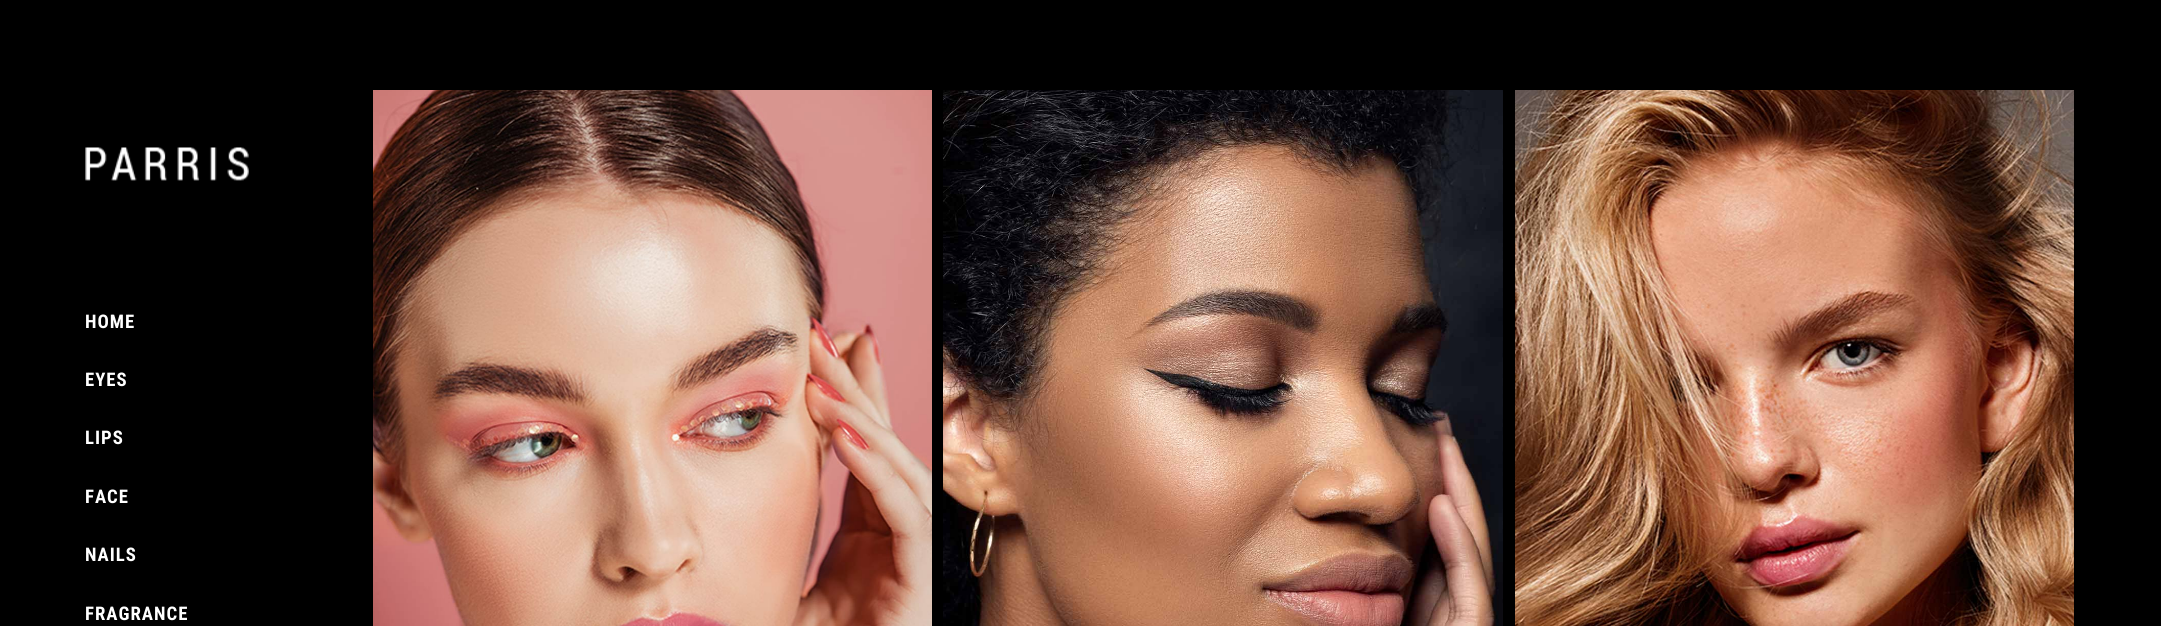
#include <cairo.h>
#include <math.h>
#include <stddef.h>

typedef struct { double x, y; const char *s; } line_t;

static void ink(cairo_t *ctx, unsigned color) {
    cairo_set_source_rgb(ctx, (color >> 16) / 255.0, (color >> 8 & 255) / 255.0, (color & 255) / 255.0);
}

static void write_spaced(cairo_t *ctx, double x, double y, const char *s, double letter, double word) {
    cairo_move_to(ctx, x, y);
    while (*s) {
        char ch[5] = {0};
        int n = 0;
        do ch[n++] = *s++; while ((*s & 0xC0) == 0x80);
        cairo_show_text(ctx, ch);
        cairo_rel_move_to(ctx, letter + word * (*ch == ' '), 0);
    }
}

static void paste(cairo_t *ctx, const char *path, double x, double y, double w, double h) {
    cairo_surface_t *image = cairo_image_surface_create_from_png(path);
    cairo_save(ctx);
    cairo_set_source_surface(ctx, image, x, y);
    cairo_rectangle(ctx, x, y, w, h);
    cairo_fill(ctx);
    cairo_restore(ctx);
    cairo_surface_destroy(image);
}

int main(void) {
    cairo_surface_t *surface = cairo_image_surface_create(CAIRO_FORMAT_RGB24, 2161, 626);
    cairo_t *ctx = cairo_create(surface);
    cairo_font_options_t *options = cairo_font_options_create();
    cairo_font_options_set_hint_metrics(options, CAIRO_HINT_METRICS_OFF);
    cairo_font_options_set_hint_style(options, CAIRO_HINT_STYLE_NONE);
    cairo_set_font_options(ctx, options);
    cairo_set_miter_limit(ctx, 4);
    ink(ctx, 0x000000);
    cairo_paint(ctx);
    paste(ctx, "media/1.png", 85, 147, 164, 34);
    cairo_select_font_face(ctx, "Roboto Condensed", CAIRO_FONT_SLANT_NORMAL, CAIRO_FONT_WEIGHT_BOLD);
    cairo_set_font_size(ctx, 18.75);
    ink(ctx, 0xFFFFFF);
    {
        static const line_t items[] = {
            {85, 328, "HOME"},
            {85, 386, "EYES"},
            {85, 444, "LIPS"},
            {85, 503, "FACE"},
            {85, 561, "NAILS"},
            {85, 620, "FRAGRANCE"},
        };
        for (size_t i = 0; i < sizeof items / sizeof *items; i++) {
            write_spaced(ctx, items[i].x, items[i].y, items[i].s, 1, 0);
        }
    }
    paste(ctx, "media/2.png", 373, 90, 559, 536);
    paste(ctx, "media/3.png", 943, 90, 560, 536);
    paste(ctx, "media/4.png", 1515, 90, 559, 536);
    cairo_surface_write_to_png(surface, "image.png");
    cairo_font_options_destroy(options);
    cairo_destroy(ctx);
    cairo_surface_destroy(surface);
    return 0;
}
